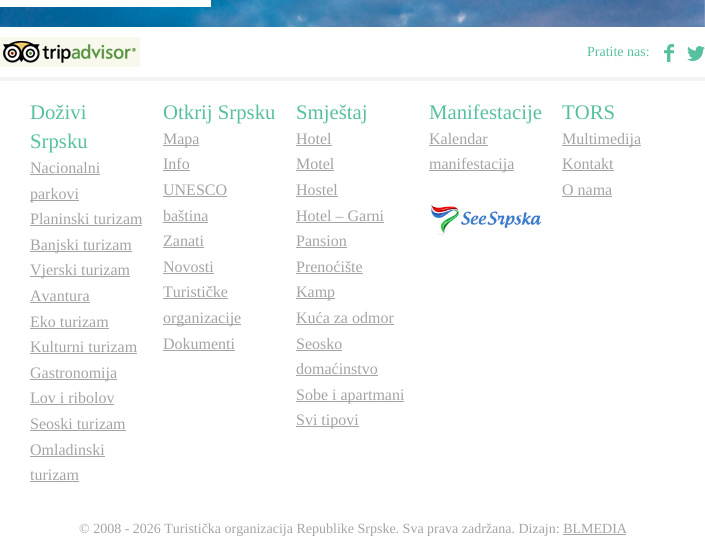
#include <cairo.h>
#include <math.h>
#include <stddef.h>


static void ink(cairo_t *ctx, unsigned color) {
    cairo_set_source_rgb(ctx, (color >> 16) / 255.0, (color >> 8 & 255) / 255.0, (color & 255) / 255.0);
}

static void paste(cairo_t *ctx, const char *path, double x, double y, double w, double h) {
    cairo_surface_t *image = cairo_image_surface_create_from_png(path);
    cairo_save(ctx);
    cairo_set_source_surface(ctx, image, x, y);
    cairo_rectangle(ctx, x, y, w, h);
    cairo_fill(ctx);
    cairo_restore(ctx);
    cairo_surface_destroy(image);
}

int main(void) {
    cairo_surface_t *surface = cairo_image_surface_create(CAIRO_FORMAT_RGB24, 705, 554);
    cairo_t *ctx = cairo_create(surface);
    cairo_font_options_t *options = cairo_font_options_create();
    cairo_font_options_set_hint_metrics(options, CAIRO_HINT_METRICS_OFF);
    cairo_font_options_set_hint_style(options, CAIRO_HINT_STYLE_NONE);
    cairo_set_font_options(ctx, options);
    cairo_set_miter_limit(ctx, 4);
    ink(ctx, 0xFFFFFF);
    cairo_paint(ctx);
    paste(ctx, "media/1.png", 0, 0, 705, 27);
    ink(ctx, 0xFFFFFF);
    cairo_rectangle(ctx, 0, 0, 211, 7);
    cairo_fill(ctx);
    paste(ctx, "media/2.png", 0, 37, 140, 30);
    cairo_select_font_face(ctx, "Liberation Serif", CAIRO_FONT_SLANT_NORMAL, CAIRO_FONT_WEIGHT_NORMAL);
    cairo_set_font_size(ctx, 14);
    ink(ctx, 0x57C0A0);
    cairo_move_to(ctx, 587, 56);
    cairo_show_text(ctx, "Pratite nas:");
    paste(ctx, "media/3.png", 664, 44, 10, 18);
    paste(ctx, "media/4.png", 687, 46, 18, 15);
    ink(ctx, 0xF4F4F4);
    cairo_rectangle(ctx, 0, 77, 705, 4);
    cairo_fill(ctx);
    cairo_set_font_size(ctx, 20.75);
    ink(ctx, 0x57C0A0);
    cairo_move_to(ctx, 30, 119);
    cairo_show_text(ctx, "Doživi");
    cairo_move_to(ctx, 30, 148);
    cairo_show_text(ctx, "Srpsku");
    cairo_set_font_size(ctx, 16);
    ink(ctx, 0xA4A4A4);
    cairo_move_to(ctx, 30, 173);
    cairo_show_text(ctx, "Nacionalni");
    cairo_rectangle(ctx, 30, 174, 70, 1);
    cairo_fill(ctx);
    cairo_rectangle(ctx, 30, 200, 49, 1);
    cairo_fill(ctx);
    cairo_move_to(ctx, 30, 199);
    cairo_show_text(ctx, "parkovi");
    cairo_move_to(ctx, 30, 224);
    cairo_show_text(ctx, "Planinski turizam");
    cairo_rectangle(ctx, 30, 225, 112, 1);
    cairo_fill(ctx);
    cairo_rectangle(ctx, 30, 251, 102, 1);
    cairo_fill(ctx);
    cairo_move_to(ctx, 30, 250);
    cairo_show_text(ctx, "Banjski turizam");
    cairo_rectangle(ctx, 30, 276, 100, 1);
    cairo_fill(ctx);
    cairo_move_to(ctx, 30, 275);
    cairo_show_text(ctx, "Vjerski turizam");
    cairo_move_to(ctx, 30, 301);
    cairo_show_text(ctx, "Avantura");
    cairo_rectangle(ctx, 30, 302, 60, 1);
    cairo_fill(ctx);
    cairo_move_to(ctx, 30, 327);
    cairo_show_text(ctx, "Eko turizam");
    cairo_rectangle(ctx, 30, 328, 79, 1);
    cairo_fill(ctx);
    cairo_move_to(ctx, 30, 352);
    cairo_show_text(ctx, "Kulturni turizam");
    cairo_rectangle(ctx, 30, 353, 107, 1);
    cairo_fill(ctx);
    cairo_rectangle(ctx, 30, 379, 87, 1);
    cairo_fill(ctx);
    cairo_move_to(ctx, 30, 378);
    cairo_show_text(ctx, "Gastronomija");
    cairo_move_to(ctx, 30, 403);
    cairo_show_text(ctx, "Lov i ribolov");
    cairo_rectangle(ctx, 30, 404, 84, 1);
    cairo_fill(ctx);
    cairo_move_to(ctx, 30, 429);
    cairo_show_text(ctx, "Seoski turizam");
    cairo_rectangle(ctx, 30, 430, 96, 1);
    cairo_fill(ctx);
    cairo_move_to(ctx, 30, 455);
    cairo_show_text(ctx, "Omladinski");
    cairo_rectangle(ctx, 30, 456, 75, 1);
    cairo_fill(ctx);
    cairo_move_to(ctx, 30, 480);
    cairo_show_text(ctx, "turizam");
    cairo_rectangle(ctx, 30, 481, 49, 1);
    cairo_fill(ctx);
    cairo_set_font_size(ctx, 20.75);
    ink(ctx, 0x57C0A0);
    cairo_move_to(ctx, 163, 119);
    cairo_show_text(ctx, "Otkrij Srpsku");
    ink(ctx, 0xA4A4A4);
    cairo_rectangle(ctx, 163, 145, 36, 1);
    cairo_fill(ctx);
    cairo_set_font_size(ctx, 16);
    cairo_move_to(ctx, 163, 144);
    cairo_show_text(ctx, "Mapa");
    cairo_move_to(ctx, 163, 169);
    cairo_show_text(ctx, "Info");
    cairo_rectangle(ctx, 163, 170, 27, 1);
    cairo_fill(ctx);
    cairo_move_to(ctx, 163, 195);
    cairo_show_text(ctx, "UNESCO");
    cairo_rectangle(ctx, 163, 196, 64, 1);
    cairo_fill(ctx);
    cairo_move_to(ctx, 163, 221);
    cairo_show_text(ctx, "baština");
    cairo_rectangle(ctx, 163, 222, 45, 1);
    cairo_fill(ctx);
    cairo_move_to(ctx, 163, 246);
    cairo_show_text(ctx, "Zanati");
    cairo_rectangle(ctx, 163, 247, 41, 1);
    cairo_fill(ctx);
    cairo_move_to(ctx, 163, 272);
    cairo_show_text(ctx, "Novosti");
    cairo_rectangle(ctx, 163, 273, 51, 1);
    cairo_fill(ctx);
    cairo_move_to(ctx, 163, 297);
    cairo_show_text(ctx, "Turističke");
    cairo_rectangle(ctx, 163, 298, 65, 1);
    cairo_fill(ctx);
    cairo_rectangle(ctx, 163, 324, 78, 1);
    cairo_fill(ctx);
    cairo_move_to(ctx, 163, 323);
    cairo_show_text(ctx, "organizacije");
    cairo_move_to(ctx, 163, 349);
    cairo_show_text(ctx, "Dokumenti");
    cairo_rectangle(ctx, 163, 350, 72, 1);
    cairo_fill(ctx);
    cairo_set_font_size(ctx, 20.75);
    ink(ctx, 0x57C0A0);
    cairo_move_to(ctx, 296, 119);
    cairo_show_text(ctx, "Smještaj");
    cairo_set_font_size(ctx, 16);
    ink(ctx, 0xA4A4A4);
    cairo_move_to(ctx, 296, 144);
    cairo_show_text(ctx, "Hotel");
    cairo_rectangle(ctx, 296, 145, 36, 1);
    cairo_fill(ctx);
    cairo_move_to(ctx, 296, 169);
    cairo_show_text(ctx, "Motel");
    cairo_rectangle(ctx, 296, 170, 38, 1);
    cairo_fill(ctx);
    cairo_move_to(ctx, 296, 195);
    cairo_show_text(ctx, "Hostel");
    cairo_rectangle(ctx, 296, 196, 42, 1);
    cairo_fill(ctx);
    cairo_move_to(ctx, 296, 221);
    cairo_show_text(ctx, "Hotel – Garni");
    cairo_rectangle(ctx, 296, 222, 88, 1);
    cairo_fill(ctx);
    cairo_move_to(ctx, 296, 246);
    cairo_show_text(ctx, "Pansion");
    cairo_rectangle(ctx, 296, 247, 51, 1);
    cairo_fill(ctx);
    cairo_move_to(ctx, 296, 272);
    cairo_show_text(ctx, "Prenoćište");
    cairo_rectangle(ctx, 296, 273, 67, 1);
    cairo_fill(ctx);
    cairo_rectangle(ctx, 296, 298, 39, 1);
    cairo_fill(ctx);
    cairo_move_to(ctx, 296, 297);
    cairo_show_text(ctx, "Kamp");
    cairo_move_to(ctx, 296, 323);
    cairo_show_text(ctx, "Kuća za odmor");
    cairo_rectangle(ctx, 296, 324, 98, 1);
    cairo_fill(ctx);
    cairo_move_to(ctx, 296, 349);
    cairo_show_text(ctx, "Seosko");
    cairo_rectangle(ctx, 296, 350, 46, 1);
    cairo_fill(ctx);
    cairo_move_to(ctx, 296, 374);
    cairo_show_text(ctx, "domaćinstvo");
    cairo_rectangle(ctx, 296, 375, 82, 1);
    cairo_fill(ctx);
    cairo_rectangle(ctx, 296, 401, 108, 1);
    cairo_fill(ctx);
    cairo_move_to(ctx, 296, 400);
    cairo_show_text(ctx, "Sobe i apartmani");
    cairo_rectangle(ctx, 296, 426, 63, 1);
    cairo_fill(ctx);
    cairo_move_to(ctx, 296, 425);
    cairo_show_text(ctx, "Svi tipovi");
    cairo_set_font_size(ctx, 20.75);
    ink(ctx, 0x57C0A0);
    cairo_move_to(ctx, 429, 119);
    cairo_show_text(ctx, "Manifestacije");
    cairo_set_font_size(ctx, 16);
    ink(ctx, 0xA4A4A4);
    cairo_move_to(ctx, 429, 144);
    cairo_show_text(ctx, "Kalendar");
    cairo_rectangle(ctx, 429, 145, 59, 1);
    cairo_fill(ctx);
    cairo_rectangle(ctx, 429, 170, 85, 1);
    cairo_fill(ctx);
    cairo_move_to(ctx, 429, 169);
    cairo_show_text(ctx, "manifestacija");
    paste(ctx, "media/5.png", 430, 204, 112, 31);
    cairo_set_font_size(ctx, 20.75);
    ink(ctx, 0x57C0A0);
    cairo_move_to(ctx, 562, 119);
    cairo_show_text(ctx, "TORS");
    ink(ctx, 0xA4A4A4);
    cairo_rectangle(ctx, 562, 145, 79, 1);
    cairo_fill(ctx);
    cairo_set_font_size(ctx, 16);
    cairo_move_to(ctx, 562, 144);
    cairo_show_text(ctx, "Multimedija");
    cairo_move_to(ctx, 562, 169);
    cairo_show_text(ctx, "Kontakt");
    cairo_rectangle(ctx, 562, 170, 52, 1);
    cairo_fill(ctx);
    cairo_move_to(ctx, 562, 195);
    cairo_show_text(ctx, "O nama");
    cairo_rectangle(ctx, 562, 196, 50, 1);
    cairo_fill(ctx);
    cairo_set_font_size(ctx, 14);
    cairo_move_to(ctx, 79, 533);
    cairo_show_text(ctx, "© 2008 - 2026 Turistička organizacija Republike Srpske. Sva prava zadržana. Dizajn: BLMEDIA");
    cairo_rectangle(ctx, 563, 534, 63, 1);
    cairo_fill(ctx);
    cairo_surface_write_to_png(surface, "image.png");
    cairo_font_options_destroy(options);
    cairo_destroy(ctx);
    cairo_surface_destroy(surface);
    return 0;
}
